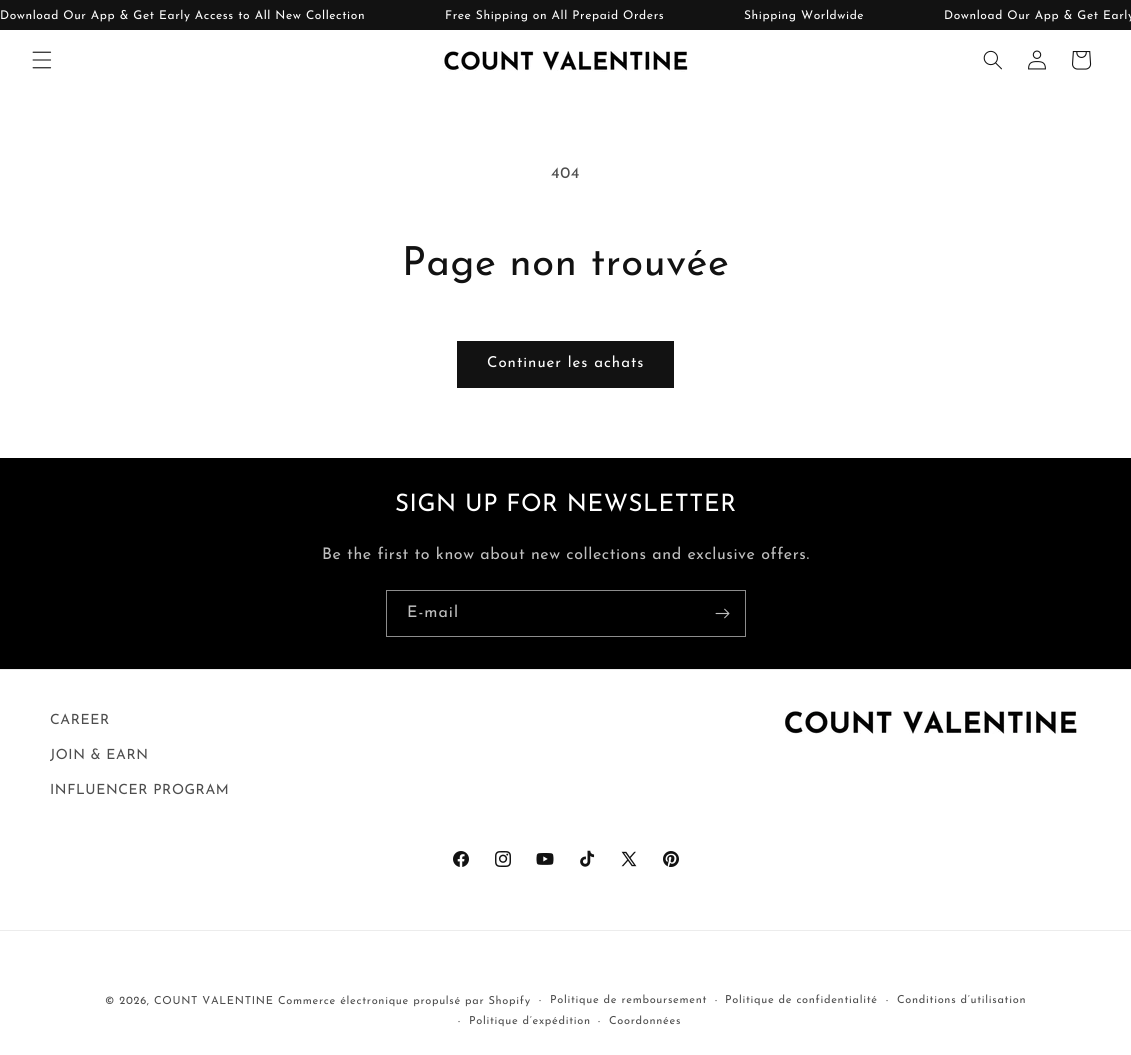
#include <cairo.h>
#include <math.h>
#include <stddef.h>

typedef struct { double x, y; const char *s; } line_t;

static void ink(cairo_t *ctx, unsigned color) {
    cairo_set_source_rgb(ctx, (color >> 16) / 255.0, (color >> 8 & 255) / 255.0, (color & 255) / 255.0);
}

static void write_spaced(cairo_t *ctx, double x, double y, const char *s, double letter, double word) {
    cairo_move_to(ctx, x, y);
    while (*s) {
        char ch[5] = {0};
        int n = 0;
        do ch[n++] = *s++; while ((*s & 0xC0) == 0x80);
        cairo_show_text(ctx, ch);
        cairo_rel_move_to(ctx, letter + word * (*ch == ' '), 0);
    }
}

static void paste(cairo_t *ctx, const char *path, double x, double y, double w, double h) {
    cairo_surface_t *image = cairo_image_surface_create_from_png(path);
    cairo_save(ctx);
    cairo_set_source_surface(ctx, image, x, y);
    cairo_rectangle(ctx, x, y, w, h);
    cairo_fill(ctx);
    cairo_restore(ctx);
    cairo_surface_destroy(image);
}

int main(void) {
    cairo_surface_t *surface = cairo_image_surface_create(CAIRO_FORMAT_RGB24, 1131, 1055);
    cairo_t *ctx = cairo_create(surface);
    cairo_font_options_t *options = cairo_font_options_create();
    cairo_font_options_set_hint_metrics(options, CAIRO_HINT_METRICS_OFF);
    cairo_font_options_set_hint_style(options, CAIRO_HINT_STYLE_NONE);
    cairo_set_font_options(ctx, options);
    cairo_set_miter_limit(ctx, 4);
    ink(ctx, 0xFFFFFF);
    cairo_paint(ctx);
    ink(ctx, 0x121212);
    cairo_rectangle(ctx, 0, 0, 1131, 30);
    cairo_fill(ctx);
    cairo_select_font_face(ctx, "Josefin Sans", CAIRO_FONT_SLANT_NORMAL, CAIRO_FONT_WEIGHT_NORMAL);
    cairo_set_font_size(ctx, 12);
    ink(ctx, 0xFFFFFF);
    {
        static const line_t items[] = {
            {0, 19, "Download Our App & Get Early Access to All New Collection"},
            {445, 19, "Free Shipping on All Prepaid Orders"},
            {744, 19, "Shipping Worldwide"},
            {944, 19, "Download Our App & Get Early"},
        };
        for (size_t i = 0; i < sizeof items / sizeof *items; i++) {
            write_spaced(ctx, items[i].x, items[i].y, items[i].s, 0.6, 0);
        }
    }
    paste(ctx, "media/1.png", 32, 51, 20, 18);
    paste(ctx, "media/2.png", 441, 51, 247, 21);
    paste(ctx, "media/3.png", 983, 50, 19, 20);
    paste(ctx, "media/4.png", 1028, 50, 18, 20);
    paste(ctx, "media/5.png", 1072, 51, 20, 19);
    cairo_set_font_size(ctx, 16);
    ink(ctx, 0x4D4D4D);
    write_spaced(ctx, 551, 178, "404", 0.6, 0);
    cairo_set_font_size(ctx, 40);
    ink(ctx, 0x121212);
    write_spaced(ctx, 402, 275, "Page non trouvée", 0.6, 0);
    cairo_rectangle(ctx, 457, 341, 217, 47);
    cairo_fill(ctx);
    cairo_set_font_size(ctx, 15);
    ink(ctx, 0xFFFFFF);
    write_spaced(ctx, 487, 367, "Continuer les achats", 1, 0);
    ink(ctx, 0x000000);
    cairo_rectangle(ctx, 0, 458, 1131, 211);
    cairo_fill(ctx);
    cairo_set_font_size(ctx, 24);
    ink(ctx, 0xFFFFFF);
    write_spaced(ctx, 395, 511, "SIGN UP FOR NEWSLETTER", 0.6, 0);
    cairo_set_font_size(ctx, 16);
    ink(ctx, 0xBFBFBF);
    write_spaced(ctx, 322, 559, "Be the first to know about new collections and exclusive offers.", 0.6, 0);
    cairo_rectangle(ctx, 386.5, 590.5, 359, 46);
    ink(ctx, 0x8C8C8C);
    cairo_set_line_width(ctx, 1);
    cairo_stroke(ctx);
    ink(ctx, 0xBFBFBF);
    write_spaced(ctx, 407, 617, "E-mail", 1, 0);
    paste(ctx, "media/6.png", 715, 608, 15, 11);
    ink(ctx, 0xECECEC);
    cairo_rectangle(ctx, 0, 669, 1131, 1);
    cairo_fill(ctx);
    cairo_set_font_size(ctx, 14);
    ink(ctx, 0x4D4D4D);
    {
        static const line_t items[] = {
            {50, 724, "CAREER"},
            {50, 759, "JOIN & EARN"},
            {50, 794, "INFLUENCER PROGRAM"},
        };
        for (size_t i = 0; i < sizeof items / sizeof *items; i++) {
            write_spaced(ctx, items[i].x, items[i].y, items[i].s, 0.6, 0);
        }
    }
    paste(ctx, "media/7.png", 785, 710, 292, 24);
    paste(ctx, "media/8.png", 453, 851, 16, 16);
    paste(ctx, "media/9.png", 495, 851, 16, 16);
    paste(ctx, "media/10.png", 536, 853, 18, 12);
    paste(ctx, "media/11.png", 580, 850, 15, 17);
    paste(ctx, "media/12.png", 621, 851, 16, 16);
    paste(ctx, "media/13.png", 663, 851, 16, 16);
    ink(ctx, 0xECECEC);
    cairo_rectangle(ctx, 0, 930, 1131, 1);
    cairo_fill(ctx);
    cairo_set_font_size(ctx, 11);
    ink(ctx, 0x4D4D4D);
    write_spaced(ctx, 105, 1004, "© 2026, COUNT VALENTINE", 0.7, 0);
    write_spaced(ctx, 278, 1004, "Commerce électronique propulsé par Shopify", 0.7, 0);
    cairo_set_font_size(ctx, 12);
    write_spaced(ctx, 539, 1004, "·", 0.7, 0);
    cairo_set_font_size(ctx, 11);
    write_spaced(ctx, 550, 1003, "Politique de remboursement", 0.7, 0);
    cairo_set_font_size(ctx, 12);
    write_spaced(ctx, 715, 1004, "·", 0.7, 0);
    cairo_set_font_size(ctx, 11);
    write_spaced(ctx, 725, 1003, "Politique de confidentialité", 0.7, 0);
    cairo_set_font_size(ctx, 12);
    write_spaced(ctx, 886, 1004, "·", 0.7, 0);
    cairo_set_font_size(ctx, 11);
    write_spaced(ctx, 897, 1003, "Conditions d’utilisation", 0.7, 0);
    cairo_set_font_size(ctx, 12);
    write_spaced(ctx, 458, 1025, "·", 0.7, 0);
    cairo_set_font_size(ctx, 11);
    write_spaced(ctx, 469, 1024, "Politique d’expédition", 0.7, 0);
    cairo_set_font_size(ctx, 12);
    write_spaced(ctx, 598, 1025, "·", 0.7, 0);
    cairo_set_font_size(ctx, 11);
    write_spaced(ctx, 609, 1024, "Coordonnées", 0.7, 0);
    cairo_surface_write_to_png(surface, "image.png");
    cairo_font_options_destroy(options);
    cairo_destroy(ctx);
    cairo_surface_destroy(surface);
    return 0;
}
